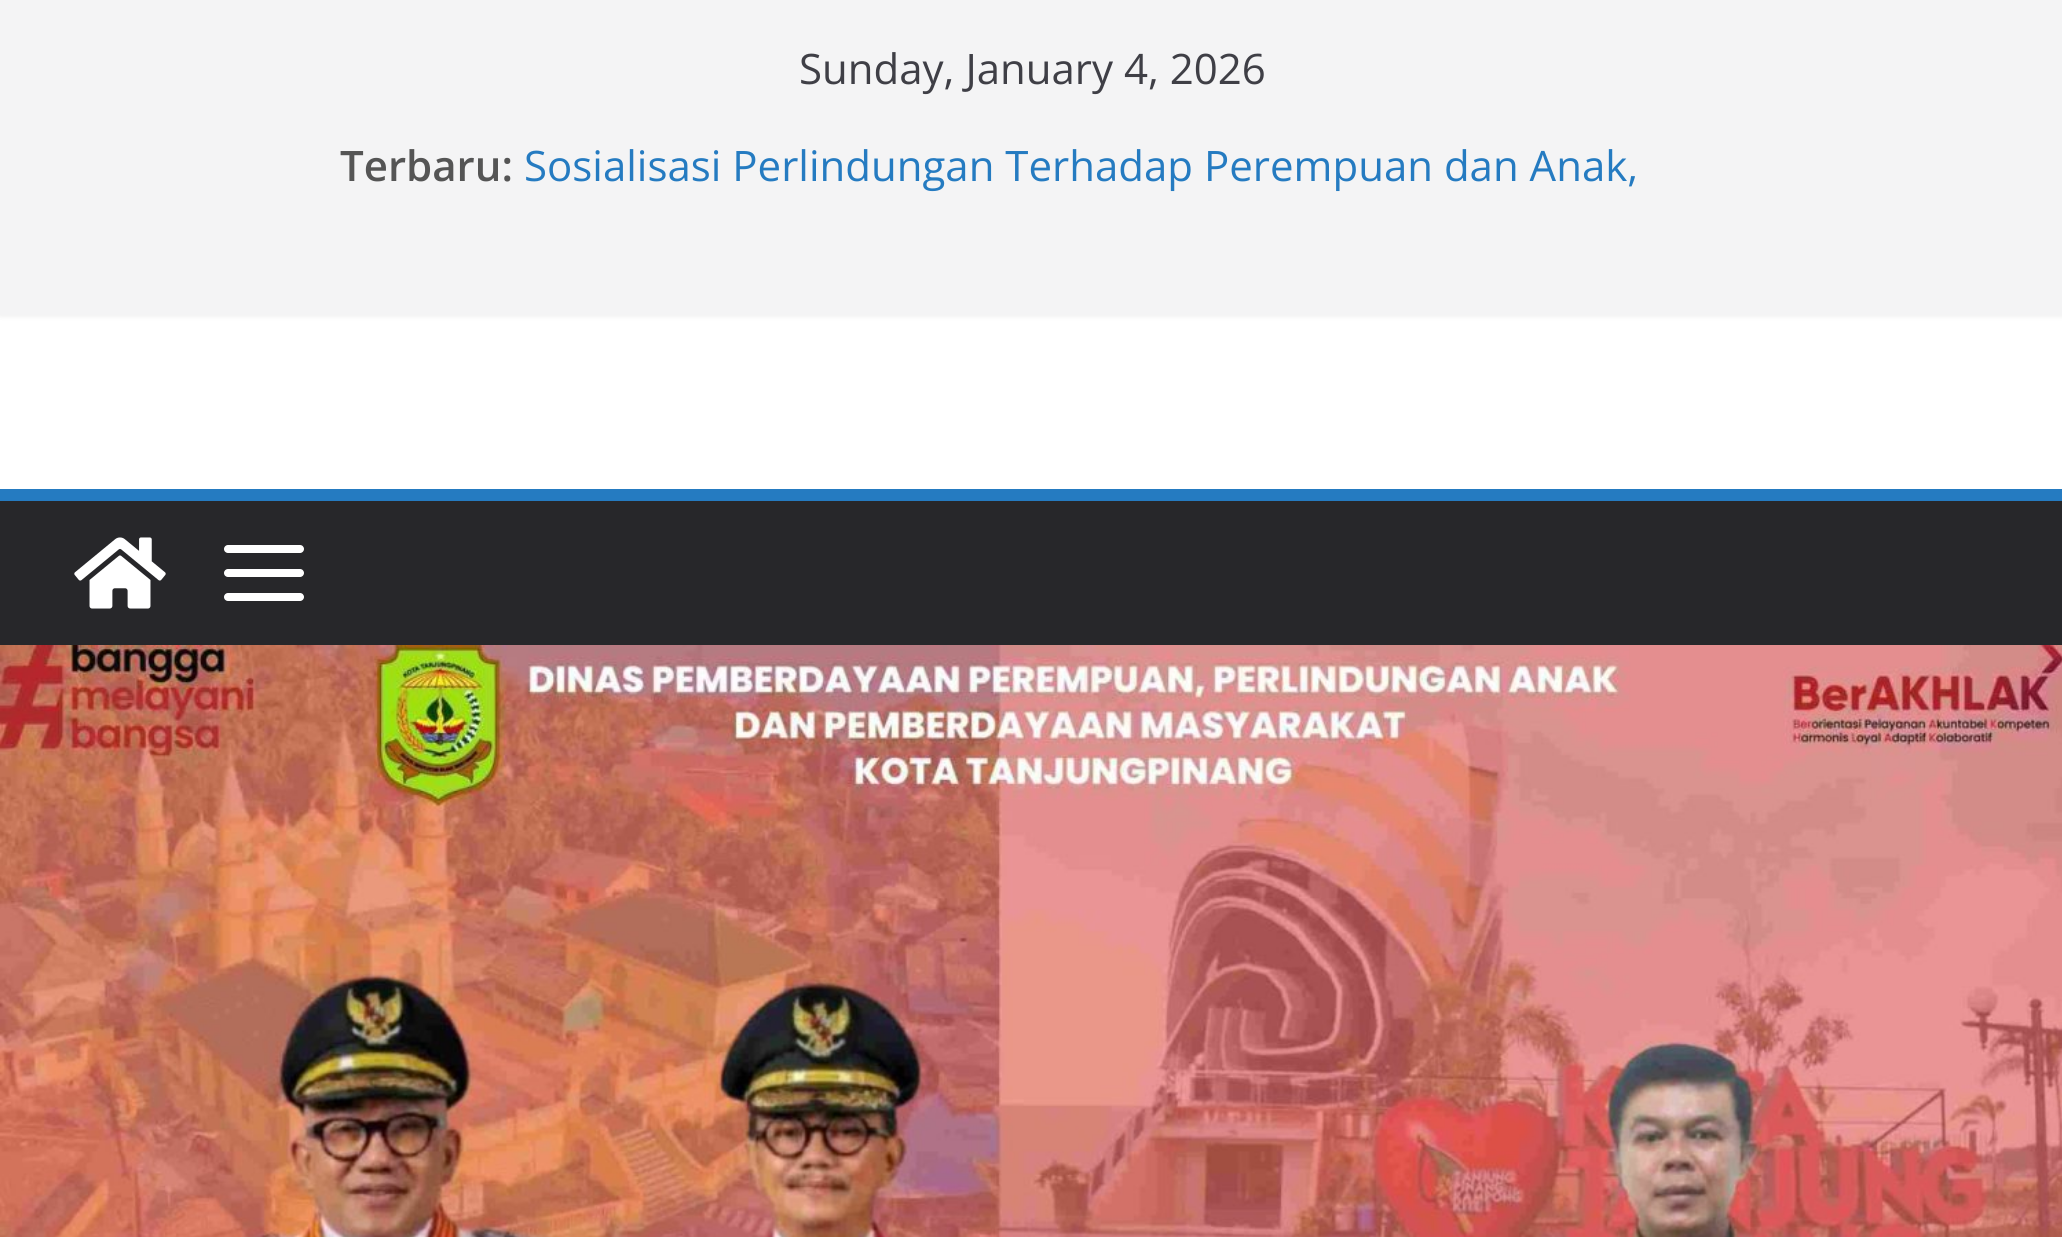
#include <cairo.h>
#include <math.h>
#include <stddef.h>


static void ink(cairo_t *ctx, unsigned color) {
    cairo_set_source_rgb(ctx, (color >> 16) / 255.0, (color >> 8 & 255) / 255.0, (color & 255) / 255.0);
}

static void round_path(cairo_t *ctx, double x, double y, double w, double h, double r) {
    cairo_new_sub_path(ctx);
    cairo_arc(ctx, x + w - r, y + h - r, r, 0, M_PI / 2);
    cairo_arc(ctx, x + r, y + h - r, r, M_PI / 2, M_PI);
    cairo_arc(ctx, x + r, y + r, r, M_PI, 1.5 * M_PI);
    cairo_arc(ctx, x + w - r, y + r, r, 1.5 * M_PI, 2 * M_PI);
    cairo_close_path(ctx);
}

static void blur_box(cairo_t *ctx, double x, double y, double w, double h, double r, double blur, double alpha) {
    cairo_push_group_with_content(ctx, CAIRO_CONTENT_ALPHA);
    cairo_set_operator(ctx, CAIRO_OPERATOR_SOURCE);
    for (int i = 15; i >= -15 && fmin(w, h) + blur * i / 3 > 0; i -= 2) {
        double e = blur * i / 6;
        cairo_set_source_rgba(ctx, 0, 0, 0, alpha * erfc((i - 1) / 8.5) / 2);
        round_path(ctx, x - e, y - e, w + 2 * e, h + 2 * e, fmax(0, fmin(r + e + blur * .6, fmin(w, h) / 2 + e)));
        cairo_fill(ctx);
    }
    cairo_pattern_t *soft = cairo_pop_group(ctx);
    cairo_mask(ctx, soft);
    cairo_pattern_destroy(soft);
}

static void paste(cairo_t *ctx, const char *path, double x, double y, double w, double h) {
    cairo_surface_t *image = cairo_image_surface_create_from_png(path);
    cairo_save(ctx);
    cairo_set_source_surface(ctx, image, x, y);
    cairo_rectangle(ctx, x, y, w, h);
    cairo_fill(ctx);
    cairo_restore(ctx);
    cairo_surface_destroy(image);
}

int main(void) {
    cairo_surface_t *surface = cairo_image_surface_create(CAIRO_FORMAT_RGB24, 2062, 1237);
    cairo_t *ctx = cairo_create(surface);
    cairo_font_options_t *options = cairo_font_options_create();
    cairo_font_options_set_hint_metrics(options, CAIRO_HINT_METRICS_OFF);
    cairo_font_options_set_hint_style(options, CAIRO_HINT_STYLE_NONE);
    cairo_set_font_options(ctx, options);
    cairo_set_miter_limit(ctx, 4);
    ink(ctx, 0xFFFFFF);
    cairo_paint(ctx);
    ink(ctx, 0x000000);
    blur_box(ctx, 0, 0, 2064, 315, 0, 3, 0.1);
    ink(ctx, 0xF4F4F5);
    cairo_rectangle(ctx, 0, 0, 2062, 315);
    cairo_fill(ctx);
    cairo_select_font_face(ctx, "Open Sans", CAIRO_FONT_SLANT_NORMAL, CAIRO_FONT_WEIGHT_NORMAL);
    cairo_set_font_size(ctx, 42);
    ink(ctx, 0x3F3F46);
    cairo_move_to(ctx, 799, 84);
    cairo_show_text(ctx, "Sunday, January 4, 2026");
    cairo_select_font_face(ctx, "Open Sans SemiBold", CAIRO_FONT_SLANT_NORMAL, CAIRO_FONT_WEIGHT_NORMAL);
    ink(ctx, 0x555555);
    cairo_move_to(ctx, 340, 181);
    cairo_show_text(ctx, "Terbaru:");
    cairo_select_font_face(ctx, "Open Sans", CAIRO_FONT_SLANT_NORMAL, CAIRO_FONT_WEIGHT_NORMAL);
    ink(ctx, 0x257BC1);
    cairo_move_to(ctx, 524, 181);
    cairo_show_text(ctx, "Sosialisasi Perlindungan Terhadap Perempuan dan Anak,");
    ink(ctx, 0x27272A);
    cairo_rectangle(ctx, 0, 501, 2062, 144);
    cairo_fill(ctx);
    ink(ctx, 0x257BC1);
    cairo_rectangle(ctx, 0, 489, 2062, 12);
    cairo_fill(ctx);
    paste(ctx, "media/1.png", 74, 537, 92, 72);
    paste(ctx, "media/2.png", 224, 545, 80, 56);
    paste(ctx, "media/3.png", 0, 645, 2062, 592);
    cairo_surface_write_to_png(surface, "image.png");
    cairo_font_options_destroy(options);
    cairo_destroy(ctx);
    cairo_surface_destroy(surface);
    return 0;
}
